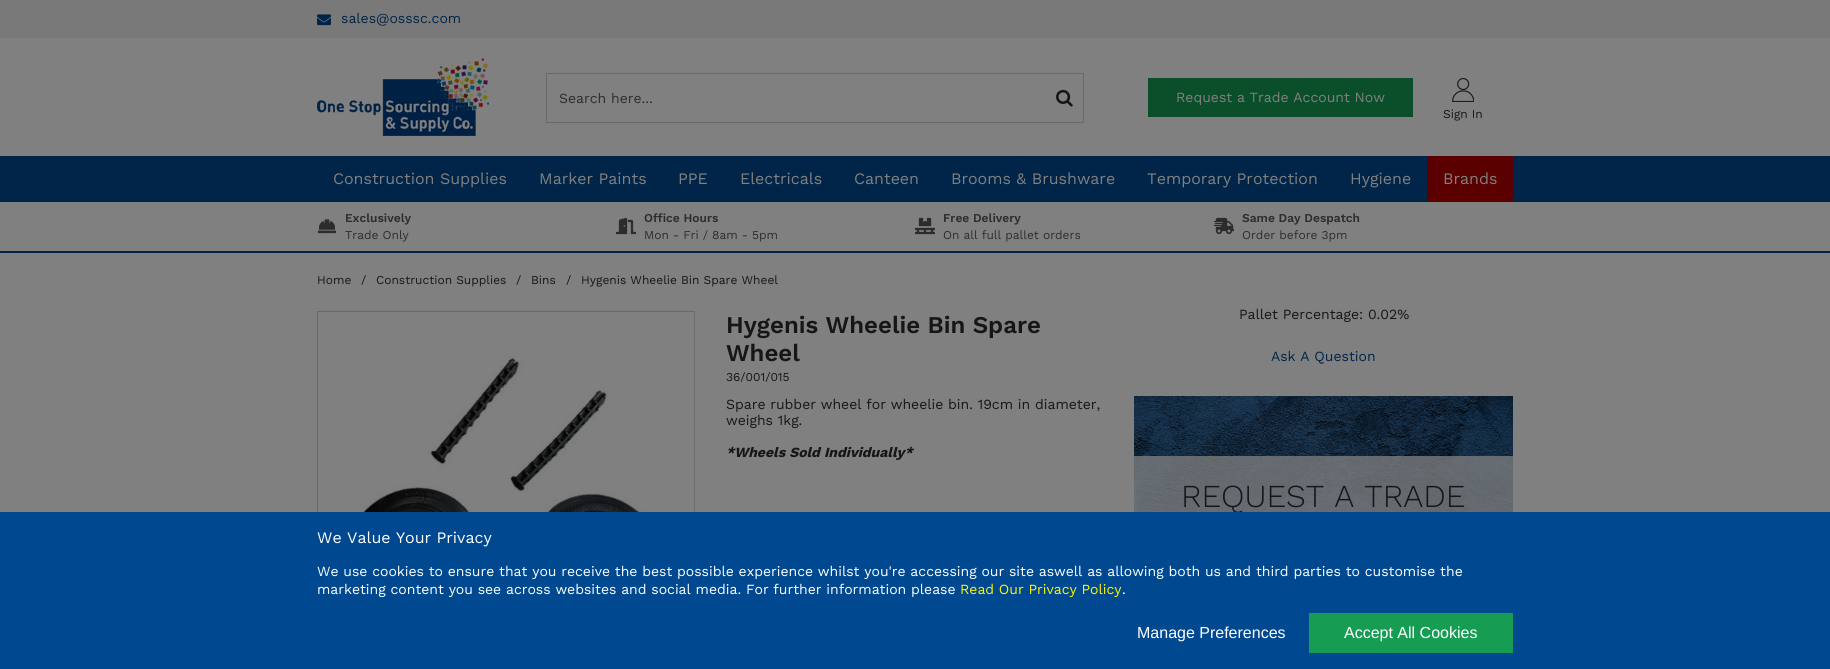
#include <cairo.h>
#include <math.h>
#include <stddef.h>

typedef struct { double x, y; const char *s; } line_t;
typedef struct { double x, y, w, h; unsigned color; } box_t;

static void ink(cairo_t *ctx, unsigned color) {
    cairo_set_source_rgb(ctx, (color >> 16) / 255.0, (color >> 8 & 255) / 255.0, (color & 255) / 255.0);
}

static void paste(cairo_t *ctx, const char *path, double x, double y, double w, double h) {
    cairo_surface_t *image = cairo_image_surface_create_from_png(path);
    cairo_save(ctx);
    cairo_set_source_surface(ctx, image, x, y);
    cairo_rectangle(ctx, x, y, w, h);
    cairo_fill(ctx);
    cairo_restore(ctx);
    cairo_surface_destroy(image);
}

int main(void) {
    cairo_surface_t *surface = cairo_image_surface_create(CAIRO_FORMAT_RGB24, 1830, 669);
    cairo_t *ctx = cairo_create(surface);
    cairo_font_options_t *options = cairo_font_options_create();
    cairo_font_options_set_hint_metrics(options, CAIRO_HINT_METRICS_OFF);
    cairo_font_options_set_hint_style(options, CAIRO_HINT_STYLE_NONE);
    cairo_set_font_options(ctx, options);
    cairo_set_miter_limit(ctx, 4);
    ink(ctx, 0x808080);
    cairo_paint(ctx);
    ink(ctx, 0x797979);
    cairo_rectangle(ctx, 0, 0, 1830, 38);
    cairo_fill(ctx);
    paste(ctx, "media/1.png", 317, 14, 14, 12);
    cairo_select_font_face(ctx, "Work Sans", CAIRO_FONT_SLANT_NORMAL, CAIRO_FONT_WEIGHT_NORMAL);
    cairo_set_font_size(ctx, 14);
    ink(ctx, 0x002548);
    cairo_move_to(ctx, 341, 23);
    cairo_show_text(ctx, "sales@osssc.com");
    paste(ctx, "media/2.png", 317, 58, 172, 78);
    {
        static const box_t items[] = {
            {546, 73, 538, 1, 0x696969},
            {1083, 73, 1, 50, 0x696969},
            {546, 122, 538, 1, 0x696969},
        };
        for (size_t i = 0; i < sizeof items / sizeof *items; i++) {
            ink(ctx, items[i].color);
            cairo_rectangle(ctx, items[i].x, items[i].y, items[i].w, items[i].h);
            cairo_fill(ctx);
        }
    }
    paste(ctx, "media/3.png", 1056, 89, 17, 18);
    cairo_rectangle(ctx, 546, 73, 1, 50);
    cairo_fill(ctx);
    ink(ctx, 0x2D2D2D);
    cairo_move_to(ctx, 559, 103);
    cairo_show_text(ctx, "Search here...");
    ink(ctx, 0x0B4F2A);
    cairo_rectangle(ctx, 1148, 78, 265, 39);
    cairo_fill(ctx);
    ink(ctx, 0x808080);
    cairo_move_to(ctx, 1176, 102);
    cairo_show_text(ctx, "Request a Trade Account Now");
    paste(ctx, "media/4.png", 1452, 78, 22, 24);
    cairo_set_font_size(ctx, 12);
    ink(ctx, 0x161616);
    cairo_move_to(ctx, 1443, 118);
    cairo_show_text(ctx, "Sign In");
    ink(ctx, 0x002548);
    cairo_rectangle(ctx, 0, 156, 1830, 46);
    cairo_fill(ctx);
    cairo_set_font_size(ctx, 16);
    ink(ctx, 0x808080);
    {
        static const line_t items[] = {
            {333, 184, "Construction Supplies"},
            {539, 184, "Marker Paints"},
            {678, 184, "PPE"},
            {740, 184, "Electricals"},
            {854, 184, "Canteen"},
            {951, 184, "Brooms & Brushware"},
            {1147, 184, "Temporary Protection"},
            {1350, 184, "Hygiene"},
        };
        for (size_t i = 0; i < sizeof items / sizeof *items; i++) {
            cairo_move_to(ctx, items[i].x, items[i].y);
            cairo_show_text(ctx, items[i].s);
        }
    }
    ink(ctx, 0x5A0000);
    cairo_rectangle(ctx, 1427, 156, 86, 46);
    cairo_fill(ctx);
    ink(ctx, 0x808080);
    cairo_move_to(ctx, 1443, 184);
    cairo_show_text(ctx, "Brands");
    paste(ctx, "media/5.png", 317, 219, 20, 15);
    cairo_select_font_face(ctx, "Work Sans SemiBold", CAIRO_FONT_SLANT_NORMAL, CAIRO_FONT_WEIGHT_NORMAL);
    cairo_set_font_size(ctx, 12);
    ink(ctx, 0x2D2D2D);
    cairo_move_to(ctx, 345, 222);
    cairo_show_text(ctx, "Exclusively");
    cairo_select_font_face(ctx, "Work Sans", CAIRO_FONT_SLANT_NORMAL, CAIRO_FONT_WEIGHT_NORMAL);
    cairo_move_to(ctx, 345, 239);
    cairo_show_text(ctx, "Trade Only");
    paste(ctx, "media/6.png", 616, 217, 20, 18);
    cairo_select_font_face(ctx, "Work Sans SemiBold", CAIRO_FONT_SLANT_NORMAL, CAIRO_FONT_WEIGHT_NORMAL);
    cairo_move_to(ctx, 644, 222);
    cairo_show_text(ctx, "Office Hours");
    cairo_select_font_face(ctx, "Work Sans", CAIRO_FONT_SLANT_NORMAL, CAIRO_FONT_WEIGHT_NORMAL);
    cairo_move_to(ctx, 644, 239);
    cairo_show_text(ctx, "Mon - Fri / 8am - 5pm");
    paste(ctx, "media/7.png", 915, 217, 20, 18);
    cairo_select_font_face(ctx, "Work Sans SemiBold", CAIRO_FONT_SLANT_NORMAL, CAIRO_FONT_WEIGHT_NORMAL);
    cairo_move_to(ctx, 943, 222);
    cairo_show_text(ctx, "Free Delivery");
    cairo_select_font_face(ctx, "Work Sans", CAIRO_FONT_SLANT_NORMAL, CAIRO_FONT_WEIGHT_NORMAL);
    cairo_move_to(ctx, 943, 239);
    cairo_show_text(ctx, "On all full pallet orders");
    paste(ctx, "media/8.png", 1214, 217, 20, 18);
    cairo_select_font_face(ctx, "Work Sans SemiBold", CAIRO_FONT_SLANT_NORMAL, CAIRO_FONT_WEIGHT_NORMAL);
    cairo_move_to(ctx, 1242, 222);
    cairo_show_text(ctx, "Same Day Despatch");
    cairo_select_font_face(ctx, "Work Sans", CAIRO_FONT_SLANT_NORMAL, CAIRO_FONT_WEIGHT_NORMAL);
    cairo_move_to(ctx, 1242, 239);
    cairo_show_text(ctx, "Order before 3pm");
    ink(ctx, 0x002548);
    cairo_rectangle(ctx, 0, 251, 1830, 2);
    cairo_fill(ctx);
    ink(ctx, 0x161616);
    {
        static const line_t items[] = {
            {317, 284, "Home"},
            {361, 284, "/"},
            {376, 284, "Construction Supplies"},
            {516, 284, "/"},
            {531, 284, "Bins"},
            {566, 284, "/"},
            {581, 284, "Hygenis Wheelie Bin Spare Wheel"},
        };
        for (size_t i = 0; i < sizeof items / sizeof *items; i++) {
            cairo_move_to(ctx, items[i].x, items[i].y);
            cairo_show_text(ctx, items[i].s);
        }
    }
    cairo_rectangle(ctx, 317.5, 311.5, 377, 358);
    ink(ctx, 0x696969);
    cairo_set_line_width(ctx, 1);
    cairo_stroke(ctx);
    paste(ctx, "media/9.png", 342, 312, 353, 200);
    cairo_select_font_face(ctx, "Work Sans SemiBold", CAIRO_FONT_SLANT_NORMAL, CAIRO_FONT_WEIGHT_NORMAL);
    cairo_set_font_size(ctx, 24);
    ink(ctx, 0x161616);
    cairo_move_to(ctx, 726, 333);
    cairo_show_text(ctx, "Hygenis Wheelie Bin Spare");
    cairo_move_to(ctx, 726, 361);
    cairo_show_text(ctx, "Wheel");
    cairo_select_font_face(ctx, "Work Sans", CAIRO_FONT_SLANT_NORMAL, CAIRO_FONT_WEIGHT_NORMAL);
    cairo_set_font_size(ctx, 12);
    cairo_move_to(ctx, 726, 381);
    cairo_show_text(ctx, "36/001/015");
    cairo_set_font_size(ctx, 14);
    cairo_move_to(ctx, 726, 409);
    cairo_show_text(ctx, "Spare rubber wheel for wheelie bin. 19cm in diameter,");
    cairo_move_to(ctx, 726, 425);
    cairo_show_text(ctx, "weighs 1kg.");
    cairo_select_font_face(ctx, "Work Sans", CAIRO_FONT_SLANT_ITALIC, CAIRO_FONT_WEIGHT_BOLD);
    cairo_move_to(ctx, 726, 457);
    cairo_show_text(ctx, "*Wheels Sold Individually*");
    cairo_select_font_face(ctx, "Work Sans", CAIRO_FONT_SLANT_NORMAL, CAIRO_FONT_WEIGHT_NORMAL);
    cairo_move_to(ctx, 1239, 319);
    cairo_show_text(ctx, "Pallet Percentage: 0.02%");
    ink(ctx, 0x002548);
    cairo_move_to(ctx, 1271, 361);
    cairo_show_text(ctx, "Ask A Question");
    paste(ctx, "media/10.png", 1134, 396, 379, 116);
    cairo_set_source_rgba(ctx, 0.502, 0.502, 0.502, 0.75);
    cairo_rectangle(ctx, 1134, 456, 379, 56);
    cairo_fill(ctx);
    cairo_select_font_face(ctx, "Work Sans Light", CAIRO_FONT_SLANT_NORMAL, CAIRO_FONT_WEIGHT_NORMAL);
    cairo_set_font_size(ctx, 32);
    ink(ctx, 0x161616);
    cairo_move_to(ctx, 1181, 507);
    cairo_show_text(ctx, "REQUEST A TRADE");
    ink(ctx, 0x004990);
    cairo_rectangle(ctx, 0, 512, 1830, 157);
    cairo_fill(ctx);
    cairo_select_font_face(ctx, "Work Sans", CAIRO_FONT_SLANT_NORMAL, CAIRO_FONT_WEIGHT_NORMAL);
    cairo_set_font_size(ctx, 16);
    ink(ctx, 0xFFFFFF);
    cairo_move_to(ctx, 317, 543);
    cairo_show_text(ctx, "We Value Your Privacy");
    cairo_set_font_size(ctx, 14);
    cairo_move_to(ctx, 317, 576);
    cairo_show_text(ctx, "We use cookies to ensure that you receive the best possible experience whilst you're accessing our site aswell as allowing both us and third parties to customise the");
    cairo_move_to(ctx, 317, 594);
    cairo_show_text(ctx, "marketing content you see across websites and social media. For further information please");
    ink(ctx, 0xFFF702);
    cairo_move_to(ctx, 960, 594);
    cairo_show_text(ctx, "Read Our Privacy Policy");
    ink(ctx, 0xFFFFFF);
    cairo_move_to(ctx, 1122, 594);
    cairo_show_text(ctx, ".");
    cairo_select_font_face(ctx, "Liberation Sans", CAIRO_FONT_SLANT_NORMAL, CAIRO_FONT_WEIGHT_NORMAL);
    cairo_set_font_size(ctx, 16);
    cairo_move_to(ctx, 1137, 638);
    cairo_show_text(ctx, "Manage Preferences");
    ink(ctx, 0x169D53);
    cairo_rectangle(ctx, 1309, 613, 204, 40);
    cairo_fill(ctx);
    ink(ctx, 0xFFFFFF);
    cairo_move_to(ctx, 1344, 638);
    cairo_show_text(ctx, "Accept All Cookies");
    cairo_surface_write_to_png(surface, "image.png");
    cairo_font_options_destroy(options);
    cairo_destroy(ctx);
    cairo_surface_destroy(surface);
    return 0;
}
